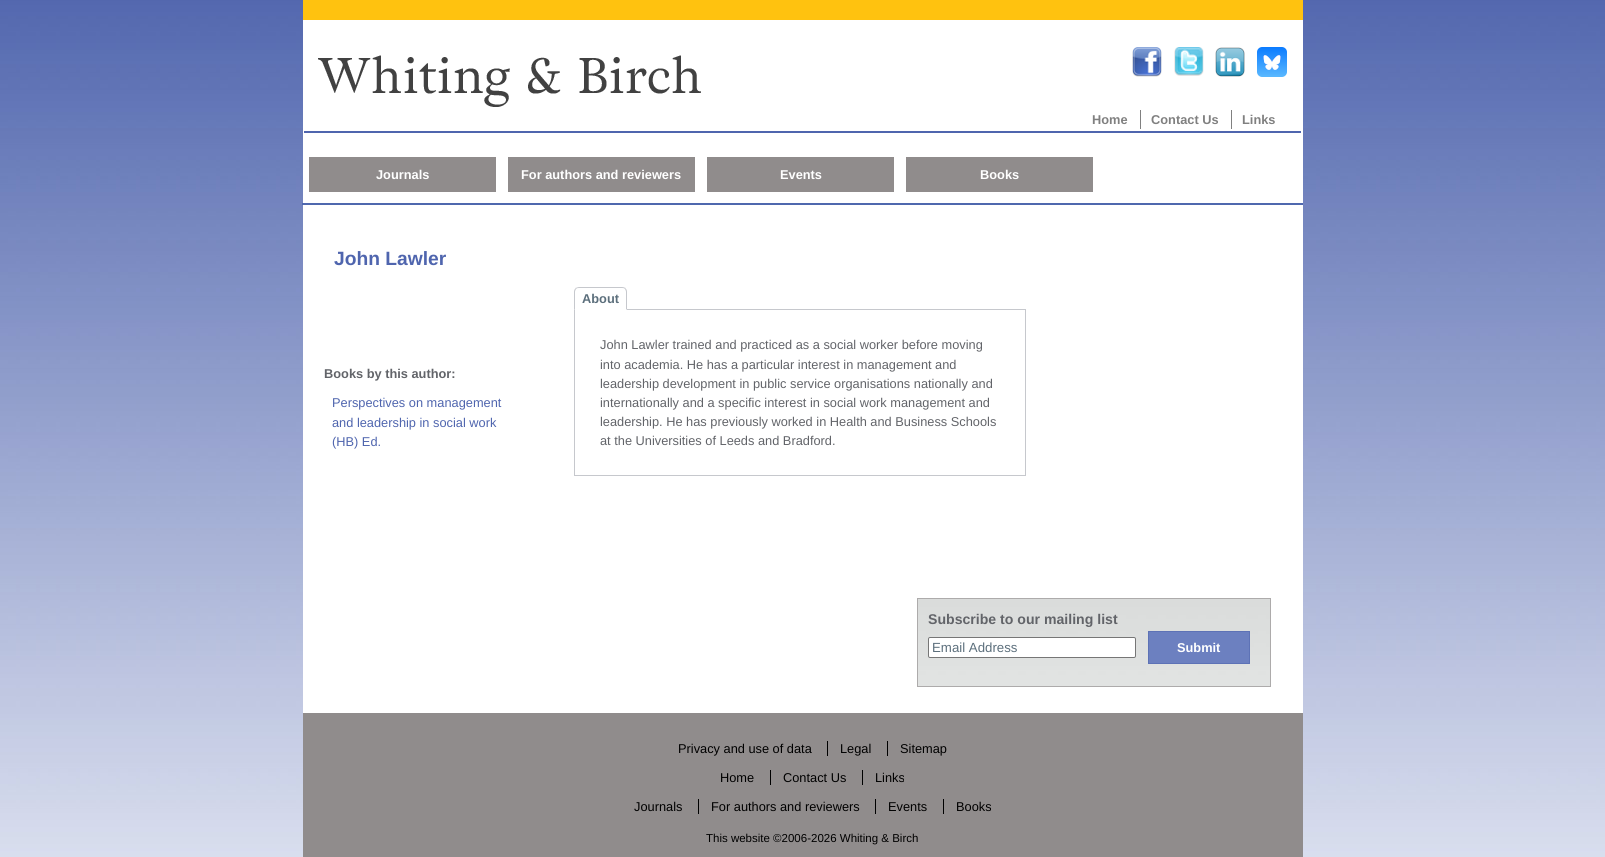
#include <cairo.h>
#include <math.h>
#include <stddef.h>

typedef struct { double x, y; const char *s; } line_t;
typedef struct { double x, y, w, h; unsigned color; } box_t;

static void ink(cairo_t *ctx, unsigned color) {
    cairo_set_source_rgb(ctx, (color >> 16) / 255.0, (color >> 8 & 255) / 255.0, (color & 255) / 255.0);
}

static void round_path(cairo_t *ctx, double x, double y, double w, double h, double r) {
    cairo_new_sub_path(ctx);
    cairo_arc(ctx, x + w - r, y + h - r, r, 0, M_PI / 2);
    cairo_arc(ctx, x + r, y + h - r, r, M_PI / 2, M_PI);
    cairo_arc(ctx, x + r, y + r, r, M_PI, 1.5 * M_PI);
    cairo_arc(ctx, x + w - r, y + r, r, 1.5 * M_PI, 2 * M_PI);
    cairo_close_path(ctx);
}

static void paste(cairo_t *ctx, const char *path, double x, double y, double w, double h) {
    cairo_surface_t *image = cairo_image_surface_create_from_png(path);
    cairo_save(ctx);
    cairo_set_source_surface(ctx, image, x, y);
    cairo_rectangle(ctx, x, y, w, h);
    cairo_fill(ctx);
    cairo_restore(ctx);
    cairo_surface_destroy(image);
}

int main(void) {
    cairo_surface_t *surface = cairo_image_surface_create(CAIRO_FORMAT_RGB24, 1605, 857);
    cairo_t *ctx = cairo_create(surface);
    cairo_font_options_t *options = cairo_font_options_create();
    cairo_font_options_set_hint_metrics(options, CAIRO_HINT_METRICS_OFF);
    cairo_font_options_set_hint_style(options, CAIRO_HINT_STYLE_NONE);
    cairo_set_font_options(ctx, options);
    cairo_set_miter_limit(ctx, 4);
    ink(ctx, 0xFFFFFF);
    cairo_paint(ctx);
    paste(ctx, "media/1.png", 0, 0, 1605, 857);
    ink(ctx, 0xFFFFFF);
    cairo_rectangle(ctx, 303, 20, 1000, 693);
    cairo_fill(ctx);
    ink(ctx, 0xFFC20F);
    cairo_rectangle(ctx, 303, 0, 1000, 20);
    cairo_fill(ctx);
    paste(ctx, "media/2.png", 318, 55, 383, 52);
    paste(ctx, "media/3.png", 1132, 47, 30, 30);
    paste(ctx, "media/4.png", 1174, 47, 30, 29);
    paste(ctx, "media/5.png", 1215, 47, 30, 30);
    paste(ctx, "media/6.png", 1257, 47, 30, 30);
    cairo_select_font_face(ctx, "Liberation Sans", CAIRO_FONT_SLANT_NORMAL, CAIRO_FONT_WEIGHT_BOLD);
    cairo_set_font_size(ctx, 12.8);
    ink(ctx, 0x808080);
    cairo_move_to(ctx, 1092, 124);
    cairo_show_text(ctx, "Home");
    cairo_rectangle(ctx, 1140, 110, 1, 19);
    cairo_fill(ctx);
    cairo_move_to(ctx, 1151, 124);
    cairo_show_text(ctx, "Contact Us");
    cairo_rectangle(ctx, 1231, 110, 1, 19);
    cairo_fill(ctx);
    cairo_move_to(ctx, 1242, 124);
    cairo_show_text(ctx, "Links");
    ink(ctx, 0x4F65AE);
    cairo_rectangle(ctx, 304, 131, 997, 2);
    cairo_fill(ctx);
    ink(ctx, 0x908C8C);
    cairo_rectangle(ctx, 309, 157, 187, 35);
    cairo_fill(ctx);
    ink(ctx, 0xFFFFFF);
    cairo_move_to(ctx, 376, 179);
    cairo_show_text(ctx, "Journals");
    ink(ctx, 0x908C8C);
    cairo_rectangle(ctx, 508, 157, 187, 35);
    cairo_fill(ctx);
    ink(ctx, 0xFFFFFF);
    cairo_move_to(ctx, 521, 179);
    cairo_show_text(ctx, "For authors and reviewers");
    ink(ctx, 0x908C8C);
    cairo_rectangle(ctx, 707, 157, 187, 35);
    cairo_fill(ctx);
    ink(ctx, 0xFFFFFF);
    cairo_move_to(ctx, 780, 179);
    cairo_show_text(ctx, "Events");
    ink(ctx, 0x908C8C);
    cairo_rectangle(ctx, 906, 157, 187, 35);
    cairo_fill(ctx);
    ink(ctx, 0xFFFFFF);
    cairo_move_to(ctx, 980, 179);
    cairo_show_text(ctx, "Books");
    ink(ctx, 0x4F68AE);
    cairo_rectangle(ctx, 302, 203, 1001, 2);
    cairo_fill(ctx);
    cairo_set_font_size(ctx, 19.25);
    ink(ctx, 0x4F65AE);
    cairo_move_to(ctx, 334, 265);
    cairo_show_text(ctx, "John Lawler");
    cairo_set_font_size(ctx, 12.8);
    ink(ctx, 0x626469);
    cairo_move_to(ctx, 324, 378);
    cairo_show_text(ctx, "Books by this author:");
    cairo_select_font_face(ctx, "Liberation Sans", CAIRO_FONT_SLANT_NORMAL, CAIRO_FONT_WEIGHT_NORMAL);
    ink(ctx, 0x4F65AE);
    {
        static const line_t items[] = {
            {332, 407, "Perspectives on management"},
            {332, 427, "and leadership in social work"},
            {332, 446, "(HB) Ed."},
        };
        for (size_t i = 0; i < sizeof items / sizeof *items; i++) {
            cairo_move_to(ctx, items[i].x, items[i].y);
            cairo_show_text(ctx, items[i].s);
        }
    }
    cairo_select_font_face(ctx, "Liberation Sans", CAIRO_FONT_SLANT_NORMAL, CAIRO_FONT_WEIGHT_BOLD);
    ink(ctx, 0x5C6F7C);
    cairo_move_to(ctx, 582, 303);
    cairo_show_text(ctx, "About");
    ink(ctx, 0xC6C8CD);
    cairo_new_path(ctx);
    cairo_move_to(ctx, 579, 287);
    cairo_curve_to(ctx, 578, 287, 576, 288, 575, 288);
    cairo_line_to(ctx, 576, 289);
    cairo_curve_to(ctx, 577, 288, 578, 288, 579, 288);
    cairo_line_to(ctx, 622, 288);
    cairo_curve_to(ctx, 623, 288, 624, 288, 625, 289);
    cairo_line_to(ctx, 626, 288);
    cairo_curve_to(ctx, 625, 288, 624, 287, 622, 287);
    cairo_close_path(ctx);
    cairo_fill(ctx);
    cairo_rectangle(ctx, 574.5, 309.5, 451, 166);
    cairo_set_line_width(ctx, 1);
    cairo_stroke(ctx);
    cairo_new_path(ctx);
    cairo_move_to(ctx, 627, 310);
    cairo_line_to(ctx, 627, 292);
    cairo_curve_to(ctx, 627, 290.5, 626.5, 289, 625.5, 288.5);
    cairo_line_to(ctx, 625, 289);
    cairo_curve_to(ctx, 625.5, 290, 626, 291, 626, 292);
    cairo_line_to(ctx, 626, 309);
    cairo_close_path(ctx);
    cairo_fill(ctx);
    ink(ctx, 0xFFFFFF);
    cairo_new_path(ctx);
    cairo_move_to(ctx, 627, 310);
    cairo_line_to(ctx, 626, 309);
    cairo_line_to(ctx, 575, 309);
    cairo_line_to(ctx, 574, 310);
    cairo_close_path(ctx);
    cairo_fill(ctx);
    ink(ctx, 0xC6C8CD);
    cairo_new_path(ctx);
    cairo_move_to(ctx, 574, 310);
    cairo_line_to(ctx, 575, 309);
    cairo_line_to(ctx, 575, 292);
    cairo_curve_to(ctx, 575, 291, 575.5, 290, 576, 289);
    cairo_line_to(ctx, 575.5, 288.5);
    cairo_curve_to(ctx, 574.5, 289, 574, 290.5, 574, 292);
    cairo_close_path(ctx);
    cairo_fill(ctx);
    cairo_select_font_face(ctx, "Liberation Sans", CAIRO_FONT_SLANT_NORMAL, CAIRO_FONT_WEIGHT_NORMAL);
    ink(ctx, 0x626469);
    {
        static const line_t items[] = {
            {600, 349, "John Lawler trained and practiced as a social worker before moving"},
            {600, 369, "into academia. He has a particular interest in management and"},
            {600, 388, "leadership development in public service organisations nationally and"},
            {600, 407, "internationally and a specific interest in social work management and"},
            {600, 426, "leadership. He has previously worked in Health and Business Schools"},
            {600, 445, "at the Universities of Leeds and Bradford."},
        };
        for (size_t i = 0; i < sizeof items / sizeof *items; i++) {
            cairo_move_to(ctx, items[i].x, items[i].y);
            cairo_show_text(ctx, items[i].s);
        }
    }
    paste(ctx, "media/7.png", 918, 599, 352, 87);
    cairo_rectangle(ctx, 917.5, 598.5, 353, 88);
    ink(ctx, 0xADABAB);
    cairo_stroke(ctx);
    cairo_select_font_face(ctx, "Liberation Sans", CAIRO_FONT_SLANT_NORMAL, CAIRO_FONT_WEIGHT_BOLD);
    cairo_set_font_size(ctx, 14.1);
    ink(ctx, 0x626469);
    cairo_move_to(ctx, 928, 624);
    cairo_show_text(ctx, "Subscribe to our mailing list");
    ink(ctx, 0xFFFFFF);
    round_path(ctx, 928.5, 637.5, 207, 20, 1.5);
    cairo_fill_preserve(ctx);
    ink(ctx, 0x767676);
    cairo_stroke(ctx);
    cairo_select_font_face(ctx, "Liberation Sans", CAIRO_FONT_SLANT_NORMAL, CAIRO_FONT_WEIGHT_NORMAL);
    cairo_set_font_size(ctx, 13.25);
    ink(ctx, 0x5C6F7C);
    cairo_move_to(ctx, 932, 652);
    cairo_show_text(ctx, "Email Address");
    ink(ctx, 0x6C80C0);
    cairo_rectangle(ctx, 1148.5, 631.5, 101, 32);
    cairo_fill_preserve(ctx);
    ink(ctx, 0x5D72B6);
    cairo_stroke(ctx);
    cairo_select_font_face(ctx, "Liberation Sans", CAIRO_FONT_SLANT_NORMAL, CAIRO_FONT_WEIGHT_BOLD);
    cairo_set_font_size(ctx, 12.8);
    ink(ctx, 0xFFFFFF);
    cairo_move_to(ctx, 1177, 652);
    cairo_show_text(ctx, "Submit");
    {
        static const box_t items[] = {
            {303, 714, 999, 143, 0x908C8C},
            {303, 713, 1000, 1, 0x908C8C},
            {1302, 713, 1, 144, 0x908C8C},
        };
        for (size_t i = 0; i < sizeof items / sizeof *items; i++) {
            ink(ctx, items[i].color);
            cairo_rectangle(ctx, items[i].x, items[i].y, items[i].w, items[i].h);
            cairo_fill(ctx);
        }
    }
    cairo_select_font_face(ctx, "Liberation Sans", CAIRO_FONT_SLANT_NORMAL, CAIRO_FONT_WEIGHT_NORMAL);
    ink(ctx, 0x000000);
    cairo_move_to(ctx, 678, 753);
    cairo_show_text(ctx, "Privacy and use of data");
    cairo_move_to(ctx, 840, 753);
    cairo_show_text(ctx, "Legal");
    cairo_rectangle(ctx, 827, 741, 1, 15);
    cairo_fill(ctx);
    cairo_move_to(ctx, 900, 753);
    cairo_show_text(ctx, "Sitemap");
    cairo_rectangle(ctx, 887, 741, 1, 15);
    cairo_fill(ctx);
    cairo_move_to(ctx, 720, 782);
    cairo_show_text(ctx, "Home");
    cairo_move_to(ctx, 783, 782);
    cairo_show_text(ctx, "Contact Us");
    cairo_rectangle(ctx, 770, 770, 1, 15);
    cairo_fill(ctx);
    cairo_move_to(ctx, 875, 782);
    cairo_show_text(ctx, "Links");
    cairo_rectangle(ctx, 862, 770, 1, 15);
    cairo_fill(ctx);
    cairo_move_to(ctx, 634, 811);
    cairo_show_text(ctx, "Journals");
    cairo_move_to(ctx, 711, 811);
    cairo_show_text(ctx, "For authors and reviewers");
    cairo_rectangle(ctx, 698, 799, 1, 15);
    cairo_fill(ctx);
    cairo_move_to(ctx, 888, 811);
    cairo_show_text(ctx, "Events");
    cairo_rectangle(ctx, 875, 799, 1, 15);
    cairo_fill(ctx);
    cairo_move_to(ctx, 956, 811);
    cairo_show_text(ctx, "Books");
    cairo_rectangle(ctx, 943, 799, 1, 15);
    cairo_fill(ctx);
    cairo_set_font_size(ctx, 11.5);
    cairo_move_to(ctx, 706, 842);
    cairo_show_text(ctx, "This website ©2006-2026 Whiting & Birch");
    cairo_surface_write_to_png(surface, "image.png");
    cairo_font_options_destroy(options);
    cairo_destroy(ctx);
    cairo_surface_destroy(surface);
    return 0;
}
